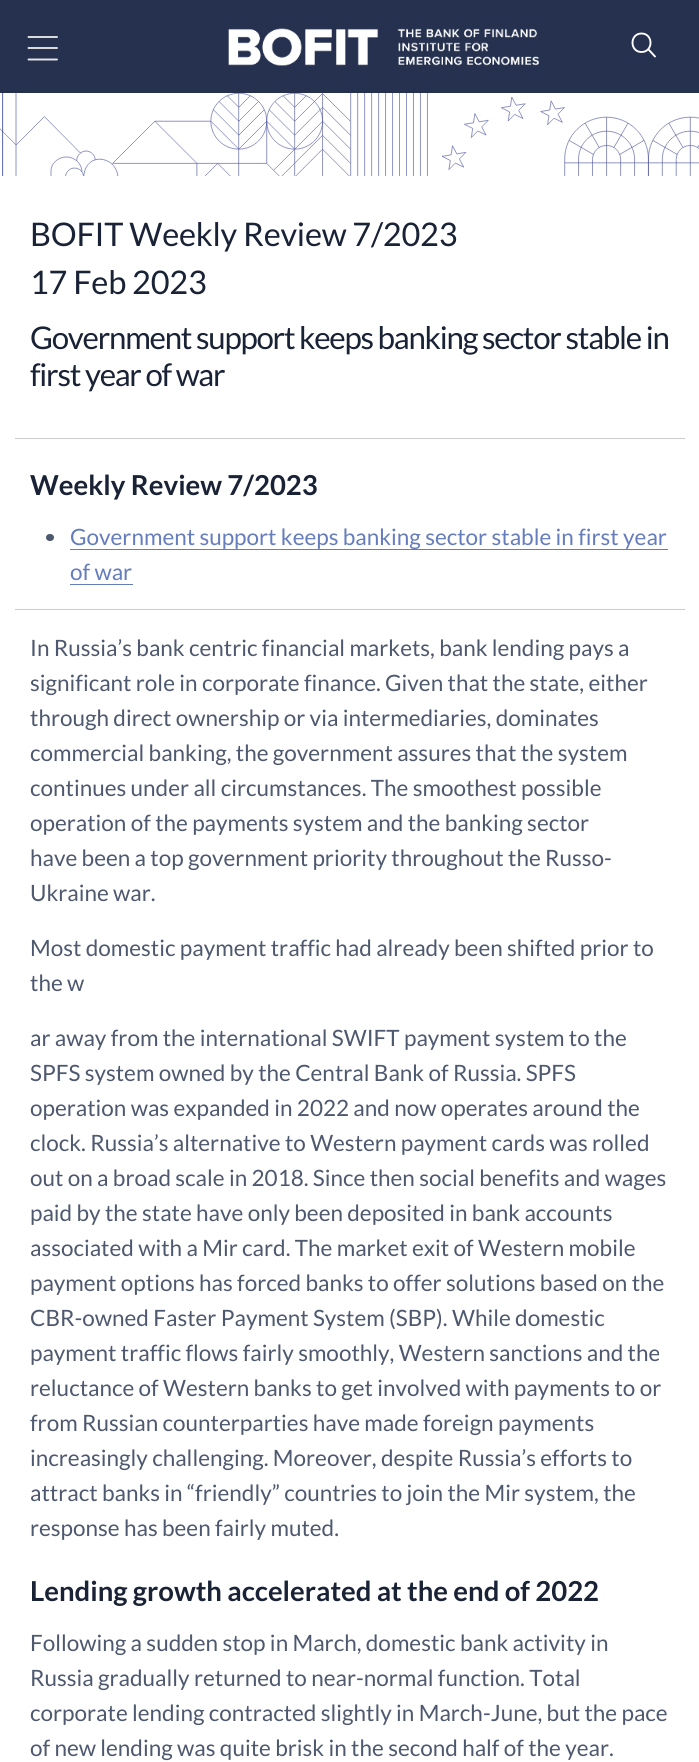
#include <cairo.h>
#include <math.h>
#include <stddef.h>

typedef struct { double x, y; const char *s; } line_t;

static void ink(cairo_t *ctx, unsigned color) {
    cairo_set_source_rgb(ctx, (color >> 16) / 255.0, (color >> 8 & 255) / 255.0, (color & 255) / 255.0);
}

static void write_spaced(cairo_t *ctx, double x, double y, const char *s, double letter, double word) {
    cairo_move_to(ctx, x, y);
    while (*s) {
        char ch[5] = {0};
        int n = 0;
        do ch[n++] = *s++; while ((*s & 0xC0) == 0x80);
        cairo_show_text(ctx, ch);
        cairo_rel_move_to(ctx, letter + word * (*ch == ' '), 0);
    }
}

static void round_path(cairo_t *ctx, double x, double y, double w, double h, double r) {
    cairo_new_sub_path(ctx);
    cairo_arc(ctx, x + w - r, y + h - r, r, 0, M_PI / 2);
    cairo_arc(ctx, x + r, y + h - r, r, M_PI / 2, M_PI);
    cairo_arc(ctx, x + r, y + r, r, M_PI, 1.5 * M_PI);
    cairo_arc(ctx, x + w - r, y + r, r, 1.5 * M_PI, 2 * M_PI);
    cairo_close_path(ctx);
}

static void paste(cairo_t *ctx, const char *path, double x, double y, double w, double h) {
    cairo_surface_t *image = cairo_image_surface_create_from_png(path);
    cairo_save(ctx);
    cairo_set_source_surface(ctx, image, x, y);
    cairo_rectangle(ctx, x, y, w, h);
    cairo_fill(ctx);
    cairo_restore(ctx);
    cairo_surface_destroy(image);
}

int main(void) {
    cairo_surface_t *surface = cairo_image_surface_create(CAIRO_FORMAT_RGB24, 699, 1762);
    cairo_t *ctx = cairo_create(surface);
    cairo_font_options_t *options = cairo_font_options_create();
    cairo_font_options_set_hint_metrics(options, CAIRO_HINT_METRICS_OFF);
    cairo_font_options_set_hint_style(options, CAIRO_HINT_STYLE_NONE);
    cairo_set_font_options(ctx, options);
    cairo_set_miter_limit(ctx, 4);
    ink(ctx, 0xFFFFFF);
    cairo_paint(ctx);
    ink(ctx, 0x25314F);
    cairo_rectangle(ctx, 0, 0, 699, 93);
    cairo_fill(ctx);
    cairo_new_path(ctx);
    cairo_move_to(ctx, 57, 37);
    cairo_line_to(ctx, 28.5, 37);
    cairo_move_to(ctx, 57, 48);
    cairo_line_to(ctx, 28.5, 48);
    cairo_move_to(ctx, 57, 59.5);
    cairo_line_to(ctx, 28.5, 59.5);
    ink(ctx, 0xE5E7E9);
    cairo_set_line_width(ctx, 1.9);
    cairo_set_line_cap(ctx, CAIRO_LINE_CAP_ROUND);
    cairo_set_line_join(ctx, CAIRO_LINE_JOIN_ROUND);
    cairo_stroke(ctx);
    paste(ctx, "media/1.png", 228, 28, 311, 38);
    cairo_new_path(ctx);
    cairo_move_to(ctx, 641.5, 52);
    cairo_curve_to(ctx, 653.5, 52, 653.5, 33.5, 641.5, 33.5);
    cairo_curve_to(ctx, 629.5, 33.5, 629.5, 52, 641.5, 52);
    cairo_close_path(ctx);
    cairo_move_to(ctx, 655, 56.5);
    cairo_line_to(ctx, 649, 50);
    ink(ctx, 0xFFFFFF);
    cairo_stroke(ctx);
    paste(ctx, "media/2.png", 0, 93, 699, 83);
    cairo_select_font_face(ctx, "Lato", CAIRO_FONT_SLANT_NORMAL, CAIRO_FONT_WEIGHT_NORMAL);
    cairo_set_font_size(ctx, 32.5);
    ink(ctx, 0x1A2236);
    write_spaced(ctx, 30, 246, "BOFIT Weekly Review 7/2023", -0.25, 0);
    write_spaced(ctx, 30, 294, "17 Feb 2023", -0.25, 0);
    cairo_set_font_size(ctx, 31.25);
    write_spaced(ctx, 30, 349, "Government support keeps banking sector stable in", -1.25, 0);
    write_spaced(ctx, 30, 386, "first year of war", -1.25, 0);
    ink(ctx, 0xC9CCD3);
    cairo_rectangle(ctx, 15, 438, 670, 1);
    cairo_fill(ctx);
    cairo_select_font_face(ctx, "Lato", CAIRO_FONT_SLANT_NORMAL, CAIRO_FONT_WEIGHT_BOLD);
    cairo_set_font_size(ctx, 27.5);
    ink(ctx, 0x1A2236);
    cairo_move_to(ctx, 30, 495);
    cairo_show_text(ctx, "Weekly Review 7/2023");
    ink(ctx, 0x4E586E);
    round_path(ctx, 46, 534, 8, 7, 3.5);
    cairo_fill(ctx);
    ink(ctx, 0x657CBD);
    cairo_rectangle(ctx, 70, 549, 598, 1);
    cairo_fill(ctx);
    cairo_select_font_face(ctx, "Lato", CAIRO_FONT_SLANT_NORMAL, CAIRO_FONT_WEIGHT_NORMAL);
    cairo_set_font_size(ctx, 22.5);
    cairo_move_to(ctx, 70, 545);
    cairo_show_text(ctx, "Government support keeps banking sector stable in first year");
    cairo_move_to(ctx, 70, 580);
    cairo_show_text(ctx, "of war");
    cairo_rectangle(ctx, 70, 584, 63, 1);
    cairo_fill(ctx);
    ink(ctx, 0xC9CCD3);
    cairo_rectangle(ctx, 15, 609, 670, 1);
    cairo_fill(ctx);
    ink(ctx, 0x4E586E);
    {
        static const line_t items[] = {
            {30, 656, "In Russia’s bank centric financial markets, bank lending pays a"},
            {30, 691, "significant role in corporate finance. Given that the state, either"},
            {30, 726, "through direct ownership or via intermediaries, dominates"},
            {30, 761, "commercial banking, the government assures that the system"},
            {30, 796, "continues under all circumstances. The smoothest possible"},
            {30, 831, "operation of the payments system and the banking sector"},
            {30, 866, "have been a top government priority throughout the Russo-"},
            {30, 901, "Ukraine war."},
            {30, 956, "Most domestic payment traffic had already been shifted prior to"},
            {30, 991, "the w"},
            {30, 1046, "ar away from the international SWIFT payment system to the"},
            {30, 1081, "SPFS system owned by the Central Bank of Russia. SPFS"},
            {30, 1116, "operation was expanded in 2022 and now operates around the"},
            {30, 1151, "clock. Russia’s alternative to Western payment cards was rolled"},
            {30, 1186, "out on a broad scale in 2018. Since then social benefits and wages"},
            {30, 1221, "paid by the state have only been deposited in bank accounts"},
            {30, 1256, "associated with a Mir card. The market exit of Western mobile"},
            {30, 1291, "payment options has forced banks to offer solutions based on the"},
            {30, 1326, "CBR-owned Faster Payment System (SBP). While domestic"},
            {30, 1361, "payment traffic flows fairly smoothly, Western sanctions and the"},
            {30, 1396, "reluctance of Western banks to get involved with payments to or"},
            {30, 1431, "from Russian counterparties have made foreign payments"},
            {30, 1466, "increasingly challenging. Moreover, despite Russia’s efforts to"},
            {30, 1501, "attract banks in “friendly” countries to join the Mir system, the"},
            {30, 1536, "response has been fairly muted."},
        };
        for (size_t i = 0; i < sizeof items / sizeof *items; i++) {
            cairo_move_to(ctx, items[i].x, items[i].y);
            cairo_show_text(ctx, items[i].s);
        }
    }
    cairo_select_font_face(ctx, "Lato", CAIRO_FONT_SLANT_NORMAL, CAIRO_FONT_WEIGHT_BOLD);
    cairo_set_font_size(ctx, 27.5);
    ink(ctx, 0x1A2236);
    cairo_move_to(ctx, 30, 1601);
    cairo_show_text(ctx, "Lending growth accelerated at the end of 2022");
    cairo_select_font_face(ctx, "Lato", CAIRO_FONT_SLANT_NORMAL, CAIRO_FONT_WEIGHT_NORMAL);
    cairo_set_font_size(ctx, 22.5);
    ink(ctx, 0x4E586E);
    {
        static const line_t items[] = {
            {30, 1651, "Following a sudden stop in March, domestic bank activity in"},
            {30, 1686, "Russia gradually returned to near-normal function. Total"},
            {30, 1721, "corporate lending contracted slightly in March-June, but the pace"},
            {30, 1756, "of new lending was quite brisk in the second half of the year."},
        };
        for (size_t i = 0; i < sizeof items / sizeof *items; i++) {
            cairo_move_to(ctx, items[i].x, items[i].y);
            cairo_show_text(ctx, items[i].s);
        }
    }
    cairo_surface_write_to_png(surface, "image.png");
    cairo_font_options_destroy(options);
    cairo_destroy(ctx);
    cairo_surface_destroy(surface);
    return 0;
}
